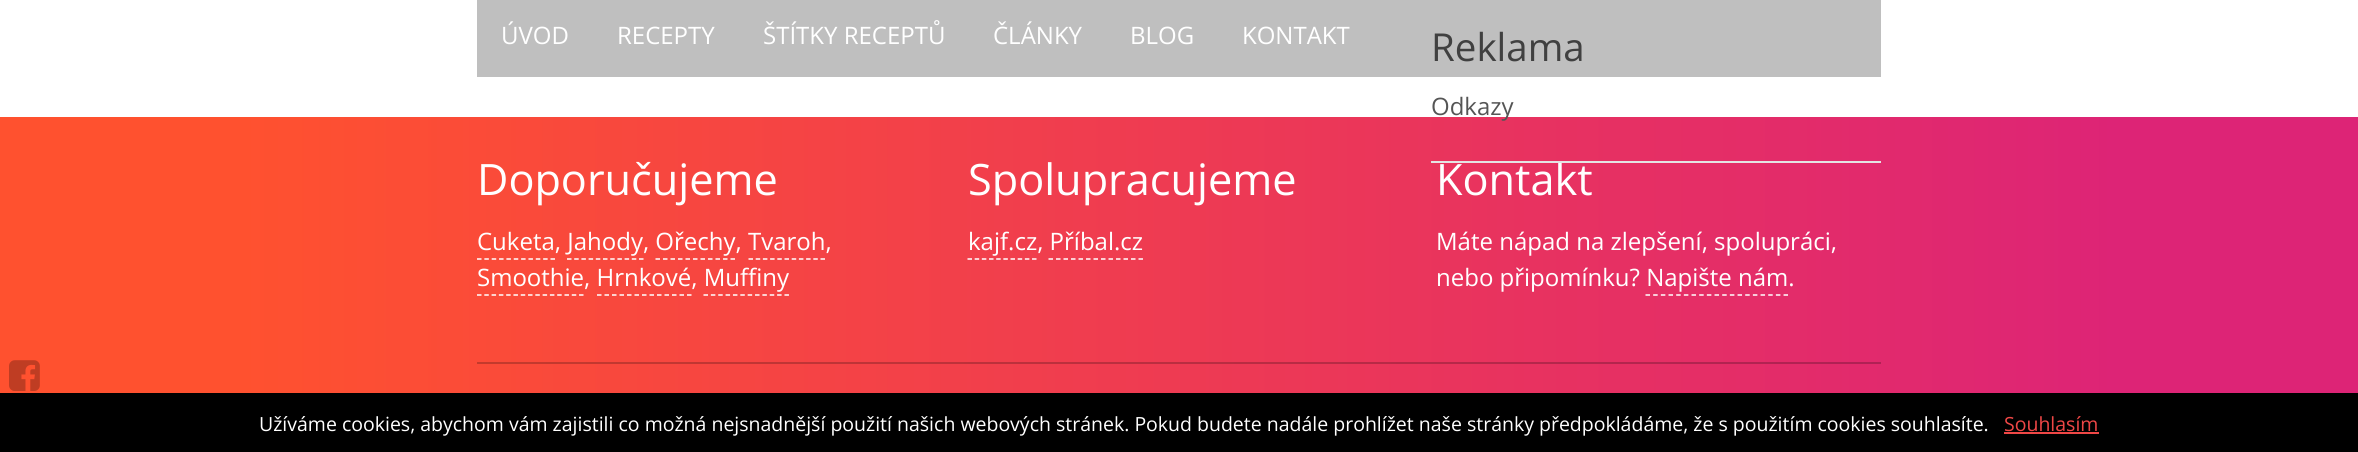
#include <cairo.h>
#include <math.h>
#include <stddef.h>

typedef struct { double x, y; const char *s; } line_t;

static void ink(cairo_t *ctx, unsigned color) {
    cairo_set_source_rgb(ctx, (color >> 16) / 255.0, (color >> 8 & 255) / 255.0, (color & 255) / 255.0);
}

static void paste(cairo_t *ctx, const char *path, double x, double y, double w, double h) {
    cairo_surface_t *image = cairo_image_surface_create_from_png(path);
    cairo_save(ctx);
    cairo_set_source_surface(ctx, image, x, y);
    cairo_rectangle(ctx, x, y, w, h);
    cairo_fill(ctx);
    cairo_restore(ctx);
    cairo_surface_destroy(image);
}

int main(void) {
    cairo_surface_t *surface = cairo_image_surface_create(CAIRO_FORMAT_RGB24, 2358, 452);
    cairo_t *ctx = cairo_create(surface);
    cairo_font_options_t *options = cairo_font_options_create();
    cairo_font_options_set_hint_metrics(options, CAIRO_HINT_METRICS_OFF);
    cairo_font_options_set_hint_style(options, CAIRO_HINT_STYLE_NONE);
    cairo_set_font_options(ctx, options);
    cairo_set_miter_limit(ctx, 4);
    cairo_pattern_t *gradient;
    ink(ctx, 0xFFFFFF);
    cairo_paint(ctx);
    cairo_select_font_face(ctx, "Open Sans", CAIRO_FONT_SLANT_NORMAL, CAIRO_FONT_WEIGHT_NORMAL);
    cairo_set_font_size(ctx, 38.5);
    ink(ctx, 0x555555);
    cairo_move_to(ctx, 1431, 61);
    cairo_show_text(ctx, "Reklama");
    cairo_set_source_rgba(ctx, 0, 0, 0, 0.25);
    cairo_rectangle(ctx, 477, 0, 1404, 77);
    cairo_fill(ctx);
    cairo_set_font_size(ctx, 24);
    ink(ctx, 0xFFFFFF);
    {
        static const line_t items[] = {
            {501, 44, "ÚVOD"},
            {617, 44, "RECEPTY"},
            {763, 44, "ŠTÍTKY RECEPTŮ"},
            {993, 44, "ČLÁNKY"},
            {1130, 44, "BLOG"},
            {1242, 44, "KONTAKT"},
        };
        for (size_t i = 0; i < sizeof items / sizeof *items; i++) {
            cairo_move_to(ctx, items[i].x, items[i].y);
            cairo_show_text(ctx, items[i].s);
        }
    }
    gradient = cairo_pattern_create_linear(0, 285, 2358, 285);
    cairo_pattern_add_color_stop_rgba(gradient, 0.1, 1, 0.318, 0.184, 1);
    cairo_pattern_add_color_stop_rgba(gradient, 0.9, 0.867, 0.141, 0.463, 1);
    cairo_set_source(ctx, gradient);
    cairo_pattern_destroy(gradient);
    cairo_rectangle(ctx, 0, 117, 2358, 276);
    cairo_fill(ctx);
    cairo_set_font_size(ctx, 43.25);
    ink(ctx, 0xFFFFFF);
    cairo_move_to(ctx, 1436, 195);
    cairo_show_text(ctx, "Kontakt");
    ink(ctx, 0xE4E4E4);
    cairo_rectangle(ctx, 1431, 161, 450, 2);
    cairo_fill(ctx);
    cairo_set_font_size(ctx, 24);
    ink(ctx, 0x555555);
    cairo_move_to(ctx, 1431, 115);
    cairo_show_text(ctx, "Odkazy");
    gradient = cairo_pattern_create_linear(0, 285, 2358, 285);
    cairo_pattern_add_color_stop_rgba(gradient, 0.1, 0.78, 0.247, 0.145, 1);
    cairo_pattern_add_color_stop_rgba(gradient, 0.9, 0.675, 0.11, 0.361, 1);
    cairo_set_source(ctx, gradient);
    cairo_pattern_destroy(gradient);
    cairo_rectangle(ctx, 477, 362, 1404, 2);
    cairo_fill(ctx);
    cairo_set_font_size(ctx, 43.25);
    ink(ctx, 0xFFFFFF);
    cairo_move_to(ctx, 477, 195);
    cairo_show_text(ctx, "Doporučujeme");
    cairo_set_font_size(ctx, 24);
    cairo_move_to(ctx, 477, 250);
    cairo_show_text(ctx, "Cuketa, Jahody, Ořechy, Tvaroh,");
    cairo_new_path(ctx);
    cairo_move_to(ctx, 477, 259);
    cairo_line_to(ctx, 555, 259);
    cairo_set_line_width(ctx, 1.5);
    cairo_set_dash(ctx, (double[]){4.5, 2.85}, 2, 0);
    cairo_stroke(ctx);
    cairo_new_path(ctx);
    cairo_move_to(ctx, 567, 259);
    cairo_line_to(ctx, 643.5, 259);
    cairo_set_dash(ctx, (double[]){4.5, 2.7}, 2, 0);
    cairo_stroke(ctx);
    cairo_new_path(ctx);
    cairo_move_to(ctx, 655.5, 259);
    cairo_line_to(ctx, 735, 259);
    cairo_set_dash(ctx, (double[]){4.5, 3}, 2, 0);
    cairo_stroke(ctx);
    cairo_new_path(ctx);
    cairo_move_to(ctx, 748.5, 259);
    cairo_line_to(ctx, 825, 259);
    cairo_set_dash(ctx, (double[]){4.5, 2.7}, 2, 0);
    cairo_stroke(ctx);
    cairo_move_to(ctx, 477, 286);
    cairo_show_text(ctx, "Smoothie, Hrnkové, Muffiny");
    cairo_new_path(ctx);
    cairo_move_to(ctx, 477, 295);
    cairo_line_to(ctx, 583.5, 295);
    cairo_set_dash(ctx, (double[]){4.5, 2.79}, 2, 0);
    cairo_stroke(ctx);
    cairo_new_path(ctx);
    cairo_move_to(ctx, 597, 295);
    cairo_line_to(ctx, 691.5, 295);
    cairo_set_dash(ctx, (double[]){4.5, 3}, 2, 0);
    cairo_stroke(ctx);
    cairo_new_path(ctx);
    cairo_move_to(ctx, 703.5, 295);
    cairo_line_to(ctx, 789, 295);
    cairo_set_dash(ctx, (double[]){4.5, 2.86}, 2, 0);
    cairo_stroke(ctx);
    cairo_set_font_size(ctx, 43.25);
    cairo_move_to(ctx, 968, 195);
    cairo_show_text(ctx, "Spolupracujeme");
    cairo_set_font_size(ctx, 24);
    cairo_move_to(ctx, 968, 250);
    cairo_show_text(ctx, "kajf.cz, Příbal.cz");
    cairo_new_path(ctx);
    cairo_move_to(ctx, 967.5, 259);
    cairo_line_to(ctx, 1036.5, 259);
    cairo_set_dash(ctx, (double[]){4.5, 2.67}, 2, 0);
    cairo_stroke(ctx);
    cairo_new_path(ctx);
    cairo_move_to(ctx, 1048.5, 259);
    cairo_line_to(ctx, 1143, 259);
    cairo_set_dash(ctx, (double[]){4.5, 3}, 2, 0);
    cairo_stroke(ctx);
    cairo_move_to(ctx, 1436, 250);
    cairo_show_text(ctx, "Máte nápad na zlepšení, spolupráci,");
    cairo_move_to(ctx, 1436, 286);
    cairo_show_text(ctx, "nebo připomínku? Napište nám.");
    cairo_new_path(ctx);
    cairo_move_to(ctx, 1645.5, 295);
    cairo_line_to(ctx, 1788, 295);
    cairo_set_dash(ctx, (double[]){4.5, 3.17}, 2, 0);
    cairo_stroke(ctx);
    paste(ctx, "media/1.png", 9, 360, 31, 31);
    ink(ctx, 0x000000);
    cairo_rectangle(ctx, 0, 393, 2358, 59);
    cairo_fill(ctx);
    cairo_set_font_size(ctx, 19.5);
    ink(ctx, 0xFFFFFF);
    cairo_move_to(ctx, 259, 431);
    cairo_show_text(ctx, "Užíváme cookies, abychom vám zajistili co možná nejsnadnější použití našich webových stránek. Pokud budete nadále prohlížet naše stránky předpokládáme, že s použitím cookies souhlasíte.");
    ink(ctx, 0xEF4746);
    cairo_move_to(ctx, 2004, 431);
    cairo_show_text(ctx, "Souhlasím");
    cairo_rectangle(ctx, 2004, 432, 95, 2);
    cairo_fill(ctx);
    cairo_surface_write_to_png(surface, "image.png");
    cairo_font_options_destroy(options);
    cairo_destroy(ctx);
    cairo_surface_destroy(surface);
    return 0;
}
